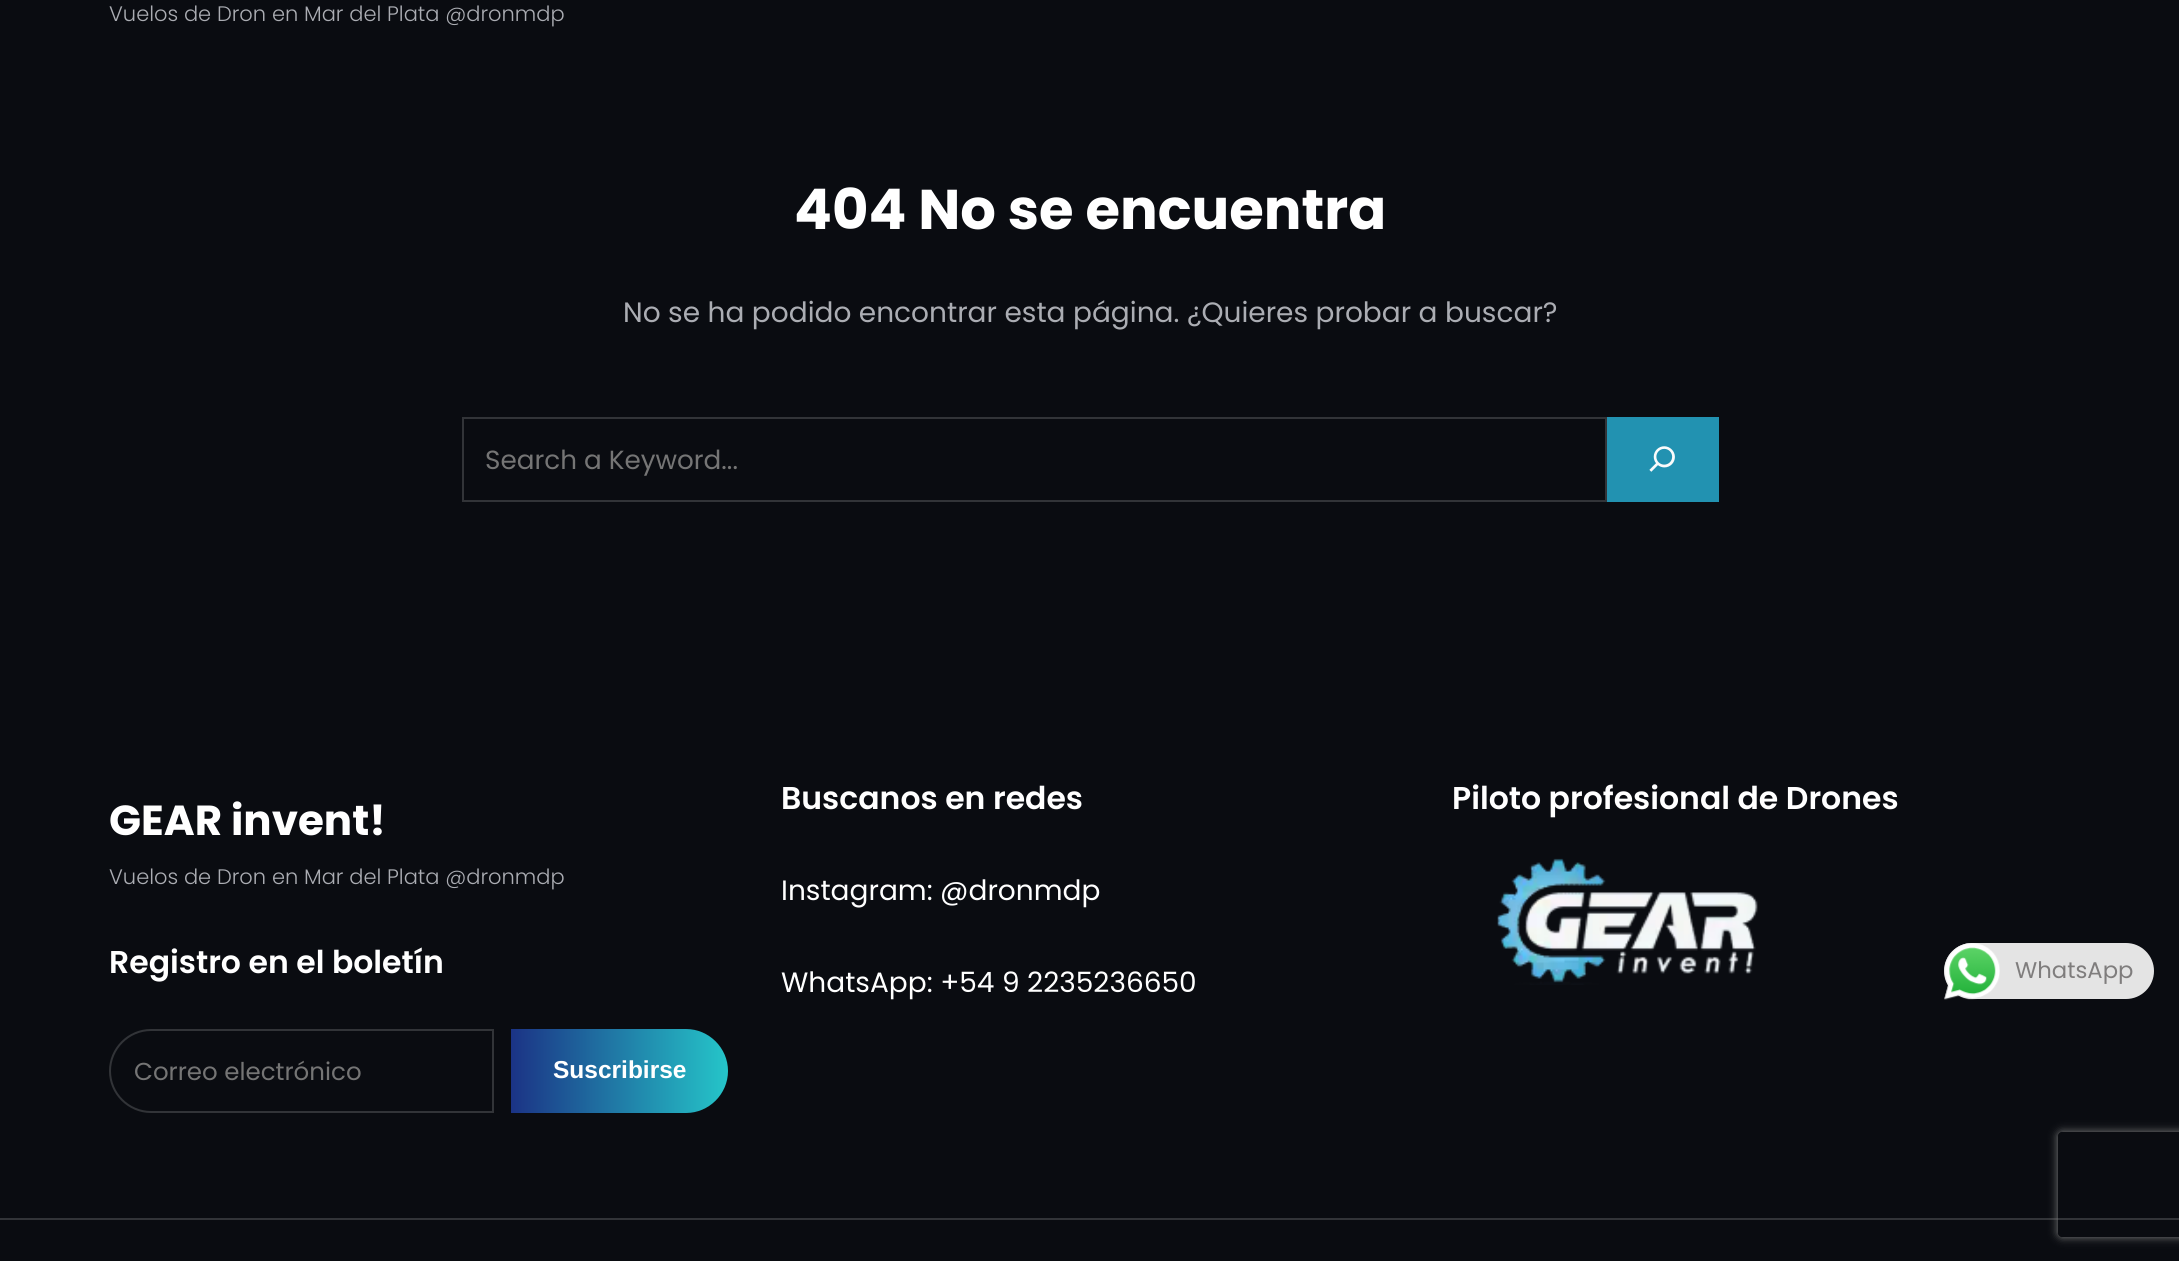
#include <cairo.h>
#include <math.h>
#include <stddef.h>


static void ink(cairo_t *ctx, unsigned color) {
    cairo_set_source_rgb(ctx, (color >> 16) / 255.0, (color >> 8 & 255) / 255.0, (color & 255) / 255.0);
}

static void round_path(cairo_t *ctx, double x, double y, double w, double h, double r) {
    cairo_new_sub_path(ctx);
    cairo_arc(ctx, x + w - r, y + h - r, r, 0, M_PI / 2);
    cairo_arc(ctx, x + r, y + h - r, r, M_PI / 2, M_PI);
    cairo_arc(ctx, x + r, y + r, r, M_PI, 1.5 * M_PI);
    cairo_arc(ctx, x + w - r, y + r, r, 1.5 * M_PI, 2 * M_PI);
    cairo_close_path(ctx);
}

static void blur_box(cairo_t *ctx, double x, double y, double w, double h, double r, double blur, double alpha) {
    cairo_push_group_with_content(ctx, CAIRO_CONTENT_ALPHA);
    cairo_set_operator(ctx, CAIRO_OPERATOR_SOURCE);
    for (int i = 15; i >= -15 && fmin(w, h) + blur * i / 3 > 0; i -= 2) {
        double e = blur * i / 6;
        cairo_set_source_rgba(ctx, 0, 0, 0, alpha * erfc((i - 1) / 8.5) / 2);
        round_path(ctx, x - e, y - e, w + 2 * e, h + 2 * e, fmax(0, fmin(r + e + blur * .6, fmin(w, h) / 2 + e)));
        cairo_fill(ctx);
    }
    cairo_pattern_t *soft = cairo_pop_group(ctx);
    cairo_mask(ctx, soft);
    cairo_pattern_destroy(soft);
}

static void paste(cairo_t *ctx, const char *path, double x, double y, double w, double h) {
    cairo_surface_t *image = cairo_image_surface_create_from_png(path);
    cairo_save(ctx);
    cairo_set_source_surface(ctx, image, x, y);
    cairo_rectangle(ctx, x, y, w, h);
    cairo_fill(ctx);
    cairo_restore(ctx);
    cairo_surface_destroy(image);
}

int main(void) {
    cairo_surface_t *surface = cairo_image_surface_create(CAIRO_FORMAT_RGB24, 2179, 1261);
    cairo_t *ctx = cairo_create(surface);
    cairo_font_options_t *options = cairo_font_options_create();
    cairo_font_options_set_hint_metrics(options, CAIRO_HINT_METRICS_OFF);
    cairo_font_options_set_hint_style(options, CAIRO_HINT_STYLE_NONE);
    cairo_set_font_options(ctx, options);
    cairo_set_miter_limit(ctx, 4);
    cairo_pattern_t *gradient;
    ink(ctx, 0x0A0C11);
    cairo_paint(ctx);
    cairo_select_font_face(ctx, "Poppins Light", CAIRO_FONT_SLANT_NORMAL, CAIRO_FONT_WEIGHT_NORMAL);
    cairo_set_font_size(ctx, 21);
    ink(ctx, 0xABADB3);
    cairo_move_to(ctx, 109, 21);
    cairo_show_text(ctx, "Vuelos de Dron en Mar del Plata @dronmdp");
    cairo_select_font_face(ctx, "Poppins", CAIRO_FONT_SLANT_NORMAL, CAIRO_FONT_WEIGHT_BOLD);
    cairo_set_font_size(ctx, 56);
    ink(ctx, 0xFFFFFF);
    cairo_move_to(ctx, 794, 229);
    cairo_show_text(ctx, "404 No se encuentra");
    cairo_select_font_face(ctx, "Poppins", CAIRO_FONT_SLANT_NORMAL, CAIRO_FONT_WEIGHT_NORMAL);
    cairo_set_font_size(ctx, 28);
    ink(ctx, 0xABADB3);
    cairo_move_to(ctx, 623, 322);
    cairo_show_text(ctx, "No se ha podido encontrar esta página. ¿Quieres probar a buscar?");
    cairo_rectangle(ctx, 463, 418, 1143, 83);
    ink(ctx, 0x323438);
    cairo_stroke(ctx);
    cairo_set_font_size(ctx, 26.25);
    ink(ctx, 0x757575);
    cairo_move_to(ctx, 485, 469);
    cairo_show_text(ctx, "Search a Keyword...");
    ink(ctx, 0x2292B1);
    cairo_rectangle(ctx, 1607, 417, 112, 85);
    cairo_fill(ctx);
    paste(ctx, "media/1.png", 1649, 446, 26, 26);
    cairo_select_font_face(ctx, "Poppins", CAIRO_FONT_SLANT_NORMAL, CAIRO_FONT_WEIGHT_BOLD);
    cairo_set_font_size(ctx, 42);
    ink(ctx, 0xFFFFFF);
    cairo_move_to(ctx, 109, 835);
    cairo_show_text(ctx, "GEAR invent!");
    cairo_select_font_face(ctx, "Poppins Light", CAIRO_FONT_SLANT_NORMAL, CAIRO_FONT_WEIGHT_NORMAL);
    cairo_set_font_size(ctx, 21);
    ink(ctx, 0xABADB3);
    cairo_move_to(ctx, 109, 884);
    cairo_show_text(ctx, "Vuelos de Dron en Mar del Plata @dronmdp");
    cairo_select_font_face(ctx, "Poppins SemiBold", CAIRO_FONT_SLANT_NORMAL, CAIRO_FONT_WEIGHT_NORMAL);
    cairo_set_font_size(ctx, 31.5);
    ink(ctx, 0xFFFFFF);
    cairo_move_to(ctx, 109, 973);
    cairo_show_text(ctx, "Registro en el boletín");
    cairo_new_path(ctx);
    cairo_move_to(ctx, 151, 1030);
    cairo_line_to(ctx, 493, 1030);
    cairo_line_to(ctx, 493, 1112);
    cairo_line_to(ctx, 151, 1112);
    cairo_curve_to(ctx, 128.5, 1112, 110, 1093.5, 110, 1071);
    cairo_curve_to(ctx, 110, 1048.5, 128.5, 1030, 151, 1030);
    cairo_close_path(ctx);
    ink(ctx, 0x323438);
    cairo_stroke(ctx);
    cairo_select_font_face(ctx, "Poppins", CAIRO_FONT_SLANT_NORMAL, CAIRO_FONT_WEIGHT_NORMAL);
    cairo_set_font_size(ctx, 24.5);
    ink(ctx, 0x757575);
    cairo_move_to(ctx, 134, 1080);
    cairo_show_text(ctx, "Correo electrónico");
    gradient = cairo_pattern_create_linear(511, 1071, 728, 1071);
    cairo_pattern_add_color_stop_rgba(gradient, 0, 0.106, 0.2, 0.522, 1);
    cairo_pattern_add_color_stop_rgba(gradient, 1, 0.145, 0.773, 0.788, 1);
    cairo_set_source(ctx, gradient);
    cairo_pattern_destroy(gradient);
    cairo_new_path(ctx);
    cairo_move_to(ctx, 511, 1029);
    cairo_line_to(ctx, 686, 1029);
    cairo_curve_to(ctx, 709, 1029, 728, 1048, 728, 1071);
    cairo_curve_to(ctx, 728, 1094, 709, 1113, 686, 1113);
    cairo_line_to(ctx, 511, 1113);
    cairo_close_path(ctx);
    cairo_fill(ctx);
    cairo_select_font_face(ctx, "Liberation Sans", CAIRO_FONT_SLANT_NORMAL, CAIRO_FONT_WEIGHT_BOLD);
    ink(ctx, 0xFFFFFF);
    cairo_move_to(ctx, 553, 1078);
    cairo_show_text(ctx, "Suscribirse");
    cairo_select_font_face(ctx, "Poppins SemiBold", CAIRO_FONT_SLANT_NORMAL, CAIRO_FONT_WEIGHT_NORMAL);
    cairo_set_font_size(ctx, 31.5);
    cairo_move_to(ctx, 781, 809);
    cairo_show_text(ctx, "Buscanos en redes");
    cairo_select_font_face(ctx, "Poppins", CAIRO_FONT_SLANT_NORMAL, CAIRO_FONT_WEIGHT_NORMAL);
    cairo_set_font_size(ctx, 28);
    cairo_move_to(ctx, 781, 900);
    cairo_show_text(ctx, "Instagram: @dronmdp");
    cairo_move_to(ctx, 781, 992);
    cairo_show_text(ctx, "WhatsApp: +54 9 2235236650");
    cairo_select_font_face(ctx, "Poppins SemiBold", CAIRO_FONT_SLANT_NORMAL, CAIRO_FONT_WEIGHT_NORMAL);
    cairo_set_font_size(ctx, 31.5);
    cairo_move_to(ctx, 1452, 809);
    cairo_show_text(ctx, "Piloto profesional de Drones");
    paste(ctx, "media/2.png", 1497, 858, 261, 127);
    ink(ctx, 0x323438);
    cairo_rectangle(ctx, 0, 1218, 2179, 2);
    cairo_fill(ctx);
    ink(ctx, 0xE4E4E4);
    round_path(ctx, 1944, 943, 210, 56, 28);
    cairo_fill(ctx);
    paste(ctx, "media/3.png", 1944, 943, 56, 57);
    cairo_select_font_face(ctx, "Poppins", CAIRO_FONT_SLANT_NORMAL, CAIRO_FONT_WEIGHT_NORMAL);
    cairo_set_font_size(ctx, 22.75);
    ink(ctx, 0x7F7D7D);
    cairo_move_to(ctx, 2015, 978);
    cairo_show_text(ctx, "WhatsApp");
    cairo_save(ctx);
    cairo_set_fill_rule(ctx, CAIRO_FILL_RULE_EVEN_ODD);
    cairo_new_path(ctx);
    cairo_move_to(ctx, 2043, 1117);
    cairo_line_to(ctx, 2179, 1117);
    cairo_line_to(ctx, 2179, 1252);
    cairo_line_to(ctx, 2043, 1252);
    cairo_close_path(ctx);
    cairo_move_to(ctx, 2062, 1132);
    cairo_line_to(ctx, 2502, 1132);
    cairo_curve_to(ctx, 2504, 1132, 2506, 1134, 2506, 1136);
    cairo_line_to(ctx, 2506, 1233);
    cairo_curve_to(ctx, 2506, 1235, 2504, 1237, 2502, 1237);
    cairo_line_to(ctx, 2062, 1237);
    cairo_curve_to(ctx, 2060, 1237, 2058, 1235, 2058, 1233);
    cairo_line_to(ctx, 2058, 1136);
    cairo_curve_to(ctx, 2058, 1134, 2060, 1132, 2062, 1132);
    cairo_close_path(ctx);
    cairo_clip(ctx);
    ink(ctx, 0x808080);
    blur_box(ctx, 2058, 1132, 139, 105, 4, 4.5, 1);
    cairo_restore(ctx);
    cairo_surface_write_to_png(surface, "image.png");
    cairo_font_options_destroy(options);
    cairo_destroy(ctx);
    cairo_surface_destroy(surface);
    return 0;
}
